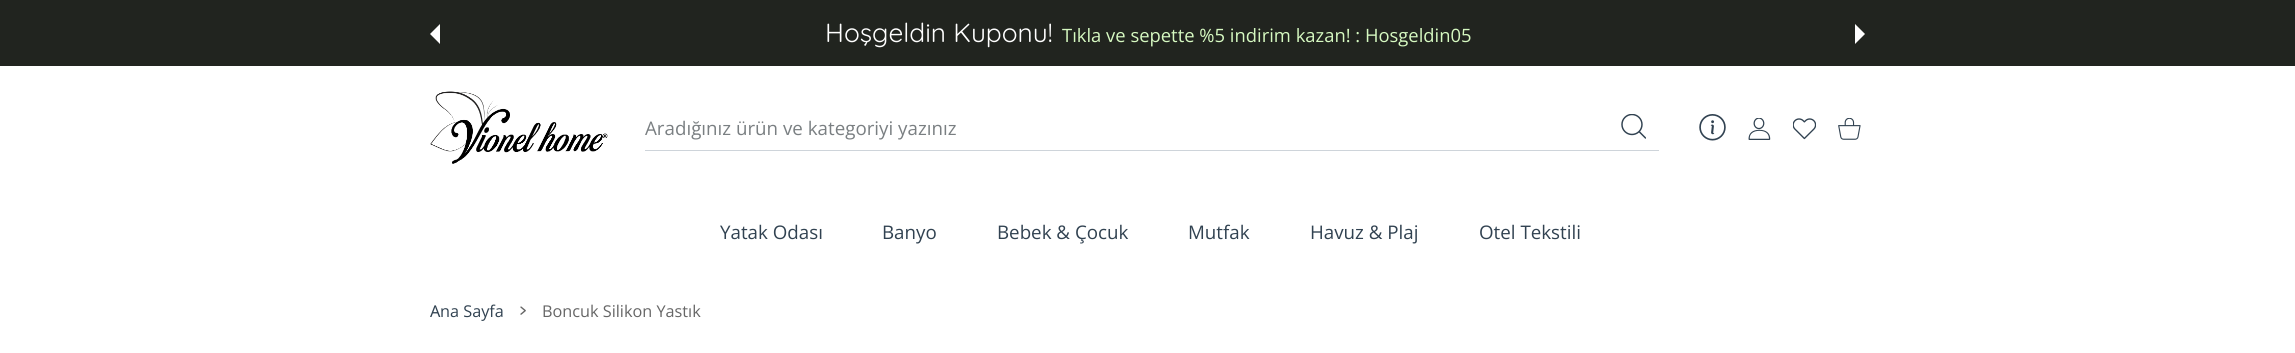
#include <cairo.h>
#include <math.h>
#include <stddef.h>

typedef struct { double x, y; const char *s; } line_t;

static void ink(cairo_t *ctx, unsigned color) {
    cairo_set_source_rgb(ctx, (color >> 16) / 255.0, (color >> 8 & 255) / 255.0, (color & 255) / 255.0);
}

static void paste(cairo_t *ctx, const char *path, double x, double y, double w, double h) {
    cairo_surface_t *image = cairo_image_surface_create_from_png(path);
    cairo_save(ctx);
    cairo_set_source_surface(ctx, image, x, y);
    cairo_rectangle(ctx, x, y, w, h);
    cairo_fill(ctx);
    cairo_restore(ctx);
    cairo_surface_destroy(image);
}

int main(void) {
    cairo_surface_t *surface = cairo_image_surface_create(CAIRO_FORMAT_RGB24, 2295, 353);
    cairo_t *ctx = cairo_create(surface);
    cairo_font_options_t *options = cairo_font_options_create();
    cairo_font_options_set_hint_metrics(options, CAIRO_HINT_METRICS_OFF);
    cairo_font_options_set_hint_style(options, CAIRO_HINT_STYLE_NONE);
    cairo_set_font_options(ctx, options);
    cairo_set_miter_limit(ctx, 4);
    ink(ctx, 0xFFFFFF);
    cairo_paint(ctx);
    ink(ctx, 0x21241F);
    cairo_rectangle(ctx, 0, 0, 2295, 66);
    cairo_fill(ctx);
    cairo_select_font_face(ctx, "Quicksand", CAIRO_FONT_SLANT_NORMAL, CAIRO_FONT_WEIGHT_NORMAL);
    cairo_set_font_size(ctx, 26.25);
    ink(ctx, 0xFFFFFF);
    cairo_move_to(ctx, 825, 42);
    cairo_show_text(ctx, "Hoşgeldin Kuponu!");
    cairo_select_font_face(ctx, "Open Sans", CAIRO_FONT_SLANT_NORMAL, CAIRO_FONT_WEIGHT_NORMAL);
    cairo_set_font_size(ctx, 18.4);
    ink(ctx, 0xD6F9C1);
    cairo_move_to(ctx, 1062, 42);
    cairo_show_text(ctx, "Tıkla ve sepette %5 indirim kazan! : Hosgeldin05");
    ink(ctx, 0xFFFFFF);
    cairo_new_path(ctx);
    cairo_move_to(ctx, 440, 24);
    cairo_line_to(ctx, 440, 44);
    cairo_line_to(ctx, 430, 34);
    cairo_close_path(ctx);
    cairo_fill(ctx);
    cairo_new_path(ctx);
    cairo_move_to(ctx, 1855, 44);
    cairo_line_to(ctx, 1855, 24);
    cairo_line_to(ctx, 1865, 34);
    cairo_close_path(ctx);
    cairo_fill(ctx);
    paste(ctx, "media/1.png", 430, 91, 178, 73);
    ink(ctx, 0xCED4DA);
    cairo_rectangle(ctx, 645, 150, 1014, 1);
    cairo_fill(ctx);
    cairo_set_font_size(ctx, 18.75);
    ink(ctx, 0x7A7F82);
    cairo_move_to(ctx, 645, 135);
    cairo_show_text(ctx, "Aradığınız ürün ve kategoriyi yazınız");
    paste(ctx, "media/2.png", 1621, 114, 25, 25);
    paste(ctx, "media/3.png", 1699, 114, 27, 27);
    paste(ctx, "media/4.png", 1748, 118, 23, 22);
    paste(ctx, "media/5.png", 1793, 118, 23, 22);
    paste(ctx, "media/6.png", 1838, 118, 23, 22);
    ink(ctx, 0x314251);
    {
        static const line_t items[] = {
            {720, 239, "Yatak Odası"},
            {882, 239, "Banyo"},
            {997, 239, "Bebek & Çocuk"},
            {1188, 239, "Mutfak"},
            {1310, 239, "Havuz & Plaj"},
            {1479, 239, "Otel Tekstili"},
        };
        for (size_t i = 0; i < sizeof items / sizeof *items; i++) {
            cairo_move_to(ctx, items[i].x, items[i].y);
            cairo_show_text(ctx, items[i].s);
        }
    }
    cairo_select_font_face(ctx, "Noto Sans", CAIRO_FONT_SLANT_NORMAL, CAIRO_FONT_WEIGHT_NORMAL);
    cairo_set_font_size(ctx, 16.25);
    cairo_move_to(ctx, 430, 317);
    cairo_show_text(ctx, "A");
    cairo_select_font_face(ctx, "Open Sans", CAIRO_FONT_SLANT_NORMAL, CAIRO_FONT_WEIGHT_NORMAL);
    cairo_move_to(ctx, 440, 317);
    cairo_show_text(ctx, "na Sayfa");
    paste(ctx, "media/7.png", 520, 306, 6, 9);
    ink(ctx, 0x666666);
    cairo_move_to(ctx, 542, 317);
    cairo_show_text(ctx, "Boncuk Silikon Yastık");
    cairo_surface_write_to_png(surface, "image.png");
    cairo_font_options_destroy(options);
    cairo_destroy(ctx);
    cairo_surface_destroy(surface);
    return 0;
}
